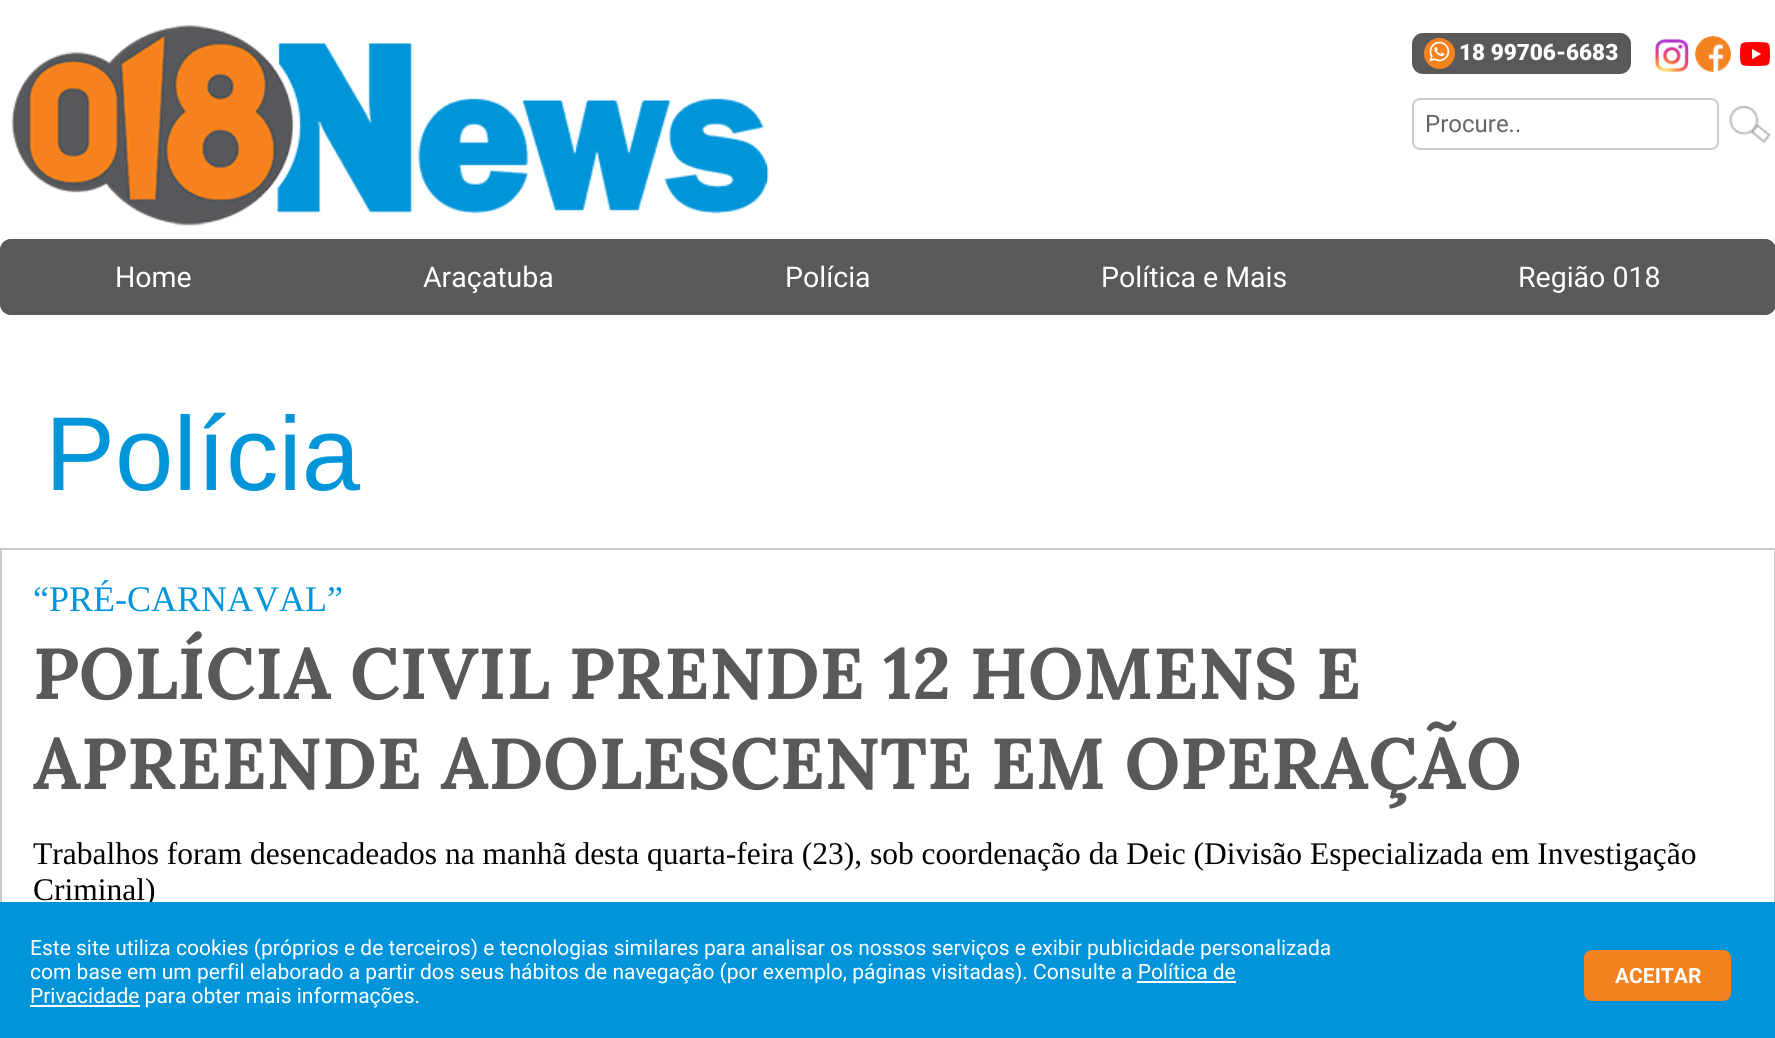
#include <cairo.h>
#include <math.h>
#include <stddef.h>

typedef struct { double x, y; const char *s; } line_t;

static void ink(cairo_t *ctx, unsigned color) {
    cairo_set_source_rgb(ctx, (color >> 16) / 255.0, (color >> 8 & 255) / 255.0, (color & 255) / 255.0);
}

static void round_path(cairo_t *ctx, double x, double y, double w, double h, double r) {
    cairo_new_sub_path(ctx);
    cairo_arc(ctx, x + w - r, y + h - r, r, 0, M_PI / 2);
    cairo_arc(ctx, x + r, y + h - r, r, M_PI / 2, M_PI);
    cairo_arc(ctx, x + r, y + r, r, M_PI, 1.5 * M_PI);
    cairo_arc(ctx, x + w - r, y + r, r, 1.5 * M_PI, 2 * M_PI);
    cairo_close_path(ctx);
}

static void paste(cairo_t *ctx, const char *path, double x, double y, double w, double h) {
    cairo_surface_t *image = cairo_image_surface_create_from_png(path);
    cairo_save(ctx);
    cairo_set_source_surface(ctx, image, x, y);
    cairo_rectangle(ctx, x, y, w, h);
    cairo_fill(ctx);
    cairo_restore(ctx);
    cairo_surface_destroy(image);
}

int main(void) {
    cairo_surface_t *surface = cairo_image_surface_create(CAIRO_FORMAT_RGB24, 1775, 1038);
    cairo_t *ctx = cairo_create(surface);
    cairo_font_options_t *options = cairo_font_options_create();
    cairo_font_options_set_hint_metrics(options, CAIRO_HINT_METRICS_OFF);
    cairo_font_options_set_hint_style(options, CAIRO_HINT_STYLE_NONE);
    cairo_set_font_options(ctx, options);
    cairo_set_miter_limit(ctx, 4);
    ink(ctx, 0xFFFFFF);
    cairo_paint(ctx);
    paste(ctx, "media/1.png", 11, 25, 758, 201);
    ink(ctx, 0x59595B);
    round_path(ctx, 1412, 33, 219, 41, 11);
    cairo_fill(ctx);
    ink(ctx, 0xF5821F);
    cairo_arc(ctx, 1439.5, 53.5, 15.5, 0, 2 * M_PI);
    cairo_fill(ctx);
    paste(ctx, "media/2.png", 1429, 41, 21, 21);
    cairo_select_font_face(ctx, "Roboto Black", CAIRO_FONT_SLANT_NORMAL, CAIRO_FONT_WEIGHT_NORMAL);
    cairo_set_font_size(ctx, 22.5);
    ink(ctx, 0xFFFFFF);
    cairo_move_to(ctx, 1459, 60);
    cairo_show_text(ctx, "18 99706-6683");
    paste(ctx, "media/3.png", 1654, 38, 35, 34);
    paste(ctx, "media/4.png", 1695, 36, 36, 36);
    paste(ctx, "media/5.png", 1740, 42, 30, 24);
    round_path(ctx, 1413, 99, 305, 50, 7);
    ink(ctx, 0xCCCCCC);
    cairo_stroke(ctx);
    cairo_select_font_face(ctx, "Roboto", CAIRO_FONT_SLANT_NORMAL, CAIRO_FONT_WEIGHT_NORMAL);
    cairo_set_font_size(ctx, 24);
    ink(ctx, 0x666666);
    cairo_move_to(ctx, 1425, 132);
    cairo_show_text(ctx, "Procure..");
    paste(ctx, "media/6.png", 1729, 105, 41, 38);
    ink(ctx, 0x59595B);
    round_path(ctx, 0, 239, 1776, 76, 11);
    cairo_fill(ctx);
    round_path(ctx, 0, 239, 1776, 76, 12);
    cairo_fill(ctx);
    cairo_set_font_size(ctx, 28.5);
    ink(ctx, 0xFFFFFF);
    {
        static const line_t items[] = {
            {115, 287, "Home"},
            {423, 287, "Araçatuba"},
            {785, 287, "Polícia"},
            {1101, 287, "Política e Mais"},
            {1518, 287, "Região 018"},
        };
        for (size_t i = 0; i < sizeof items / sizeof *items; i++) {
            cairo_move_to(ctx, items[i].x, items[i].y);
            cairo_show_text(ctx, items[i].s);
        }
    }
    cairo_select_font_face(ctx, "Liberation Sans", CAIRO_FONT_SLANT_NORMAL, CAIRO_FONT_WEIGHT_NORMAL);
    cairo_set_font_size(ctx, 105);
    ink(ctx, 0x0095D9);
    cairo_move_to(ctx, 45, 490);
    cairo_show_text(ctx, "Polícia");
    cairo_rectangle(ctx, 1, 549, 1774, 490);
    ink(ctx, 0xCACACA);
    cairo_stroke(ctx);
    cairo_select_font_face(ctx, "Liberation Serif", CAIRO_FONT_SLANT_NORMAL, CAIRO_FONT_WEIGHT_NORMAL);
    cairo_set_font_size(ctx, 36);
    ink(ctx, 0x0095D9);
    cairo_move_to(ctx, 33, 611);
    cairo_show_text(ctx, "“PRÉ-CARNAVAL”");
    cairo_select_font_face(ctx, "Lora", CAIRO_FONT_SLANT_NORMAL, CAIRO_FONT_WEIGHT_BOLD);
    cairo_set_font_size(ctx, 72);
    ink(ctx, 0x58595B);
    cairo_move_to(ctx, 33, 699);
    cairo_show_text(ctx, "POLÍCIA CIVIL PRENDE 12 HOMENS E");
    cairo_move_to(ctx, 33, 789);
    cairo_show_text(ctx, "APREENDE ADOLESCENTE EM OPERAÇÃO");
    cairo_select_font_face(ctx, "Liberation Serif", CAIRO_FONT_SLANT_NORMAL, CAIRO_FONT_WEIGHT_NORMAL);
    cairo_set_font_size(ctx, 31.5);
    ink(ctx, 0x000000);
    cairo_move_to(ctx, 33, 864);
    cairo_show_text(ctx, "Trabalhos foram desencadeados na manhã desta quarta-feira (23), sob coordenação da Deic (Divisão Especializada em Investigação");
    cairo_move_to(ctx, 33, 900);
    cairo_show_text(ctx, "Criminal)");
    ink(ctx, 0x0095DA);
    cairo_rectangle(ctx, 0, 902, 1775, 136);
    cairo_fill(ctx);
    cairo_select_font_face(ctx, "Roboto", CAIRO_FONT_SLANT_NORMAL, CAIRO_FONT_WEIGHT_NORMAL);
    cairo_set_font_size(ctx, 21);
    ink(ctx, 0xFFFFFF);
    cairo_move_to(ctx, 30, 955);
    cairo_show_text(ctx, "Este site utiliza cookies (próprios e de terceiros) e tecnologias similares para analisar os nossos serviços e exibir publicidade personalizada");
    cairo_move_to(ctx, 30, 979);
    cairo_show_text(ctx, "com base em um perfil elaborado a partir dos seus hábitos de navegação (por exemplo, páginas visitadas). Consulte a Política de");
    cairo_rectangle(ctx, 30, 1005, 110, 2);
    cairo_fill(ctx);
    cairo_move_to(ctx, 30, 1003);
    cairo_show_text(ctx, "Privacidade para obter mais informações.");
    cairo_rectangle(ctx, 1137, 981, 99, 2);
    cairo_fill(ctx);
    ink(ctx, 0xF58220);
    round_path(ctx, 1584, 950, 147, 51, 8);
    cairo_fill(ctx);
    cairo_select_font_face(ctx, "Roboto", CAIRO_FONT_SLANT_NORMAL, CAIRO_FONT_WEIGHT_BOLD);
    ink(ctx, 0xFFFFFF);
    cairo_move_to(ctx, 1615, 983);
    cairo_show_text(ctx, "ACEITAR");
    cairo_surface_write_to_png(surface, "image.png");
    cairo_font_options_destroy(options);
    cairo_destroy(ctx);
    cairo_surface_destroy(surface);
    return 0;
}
